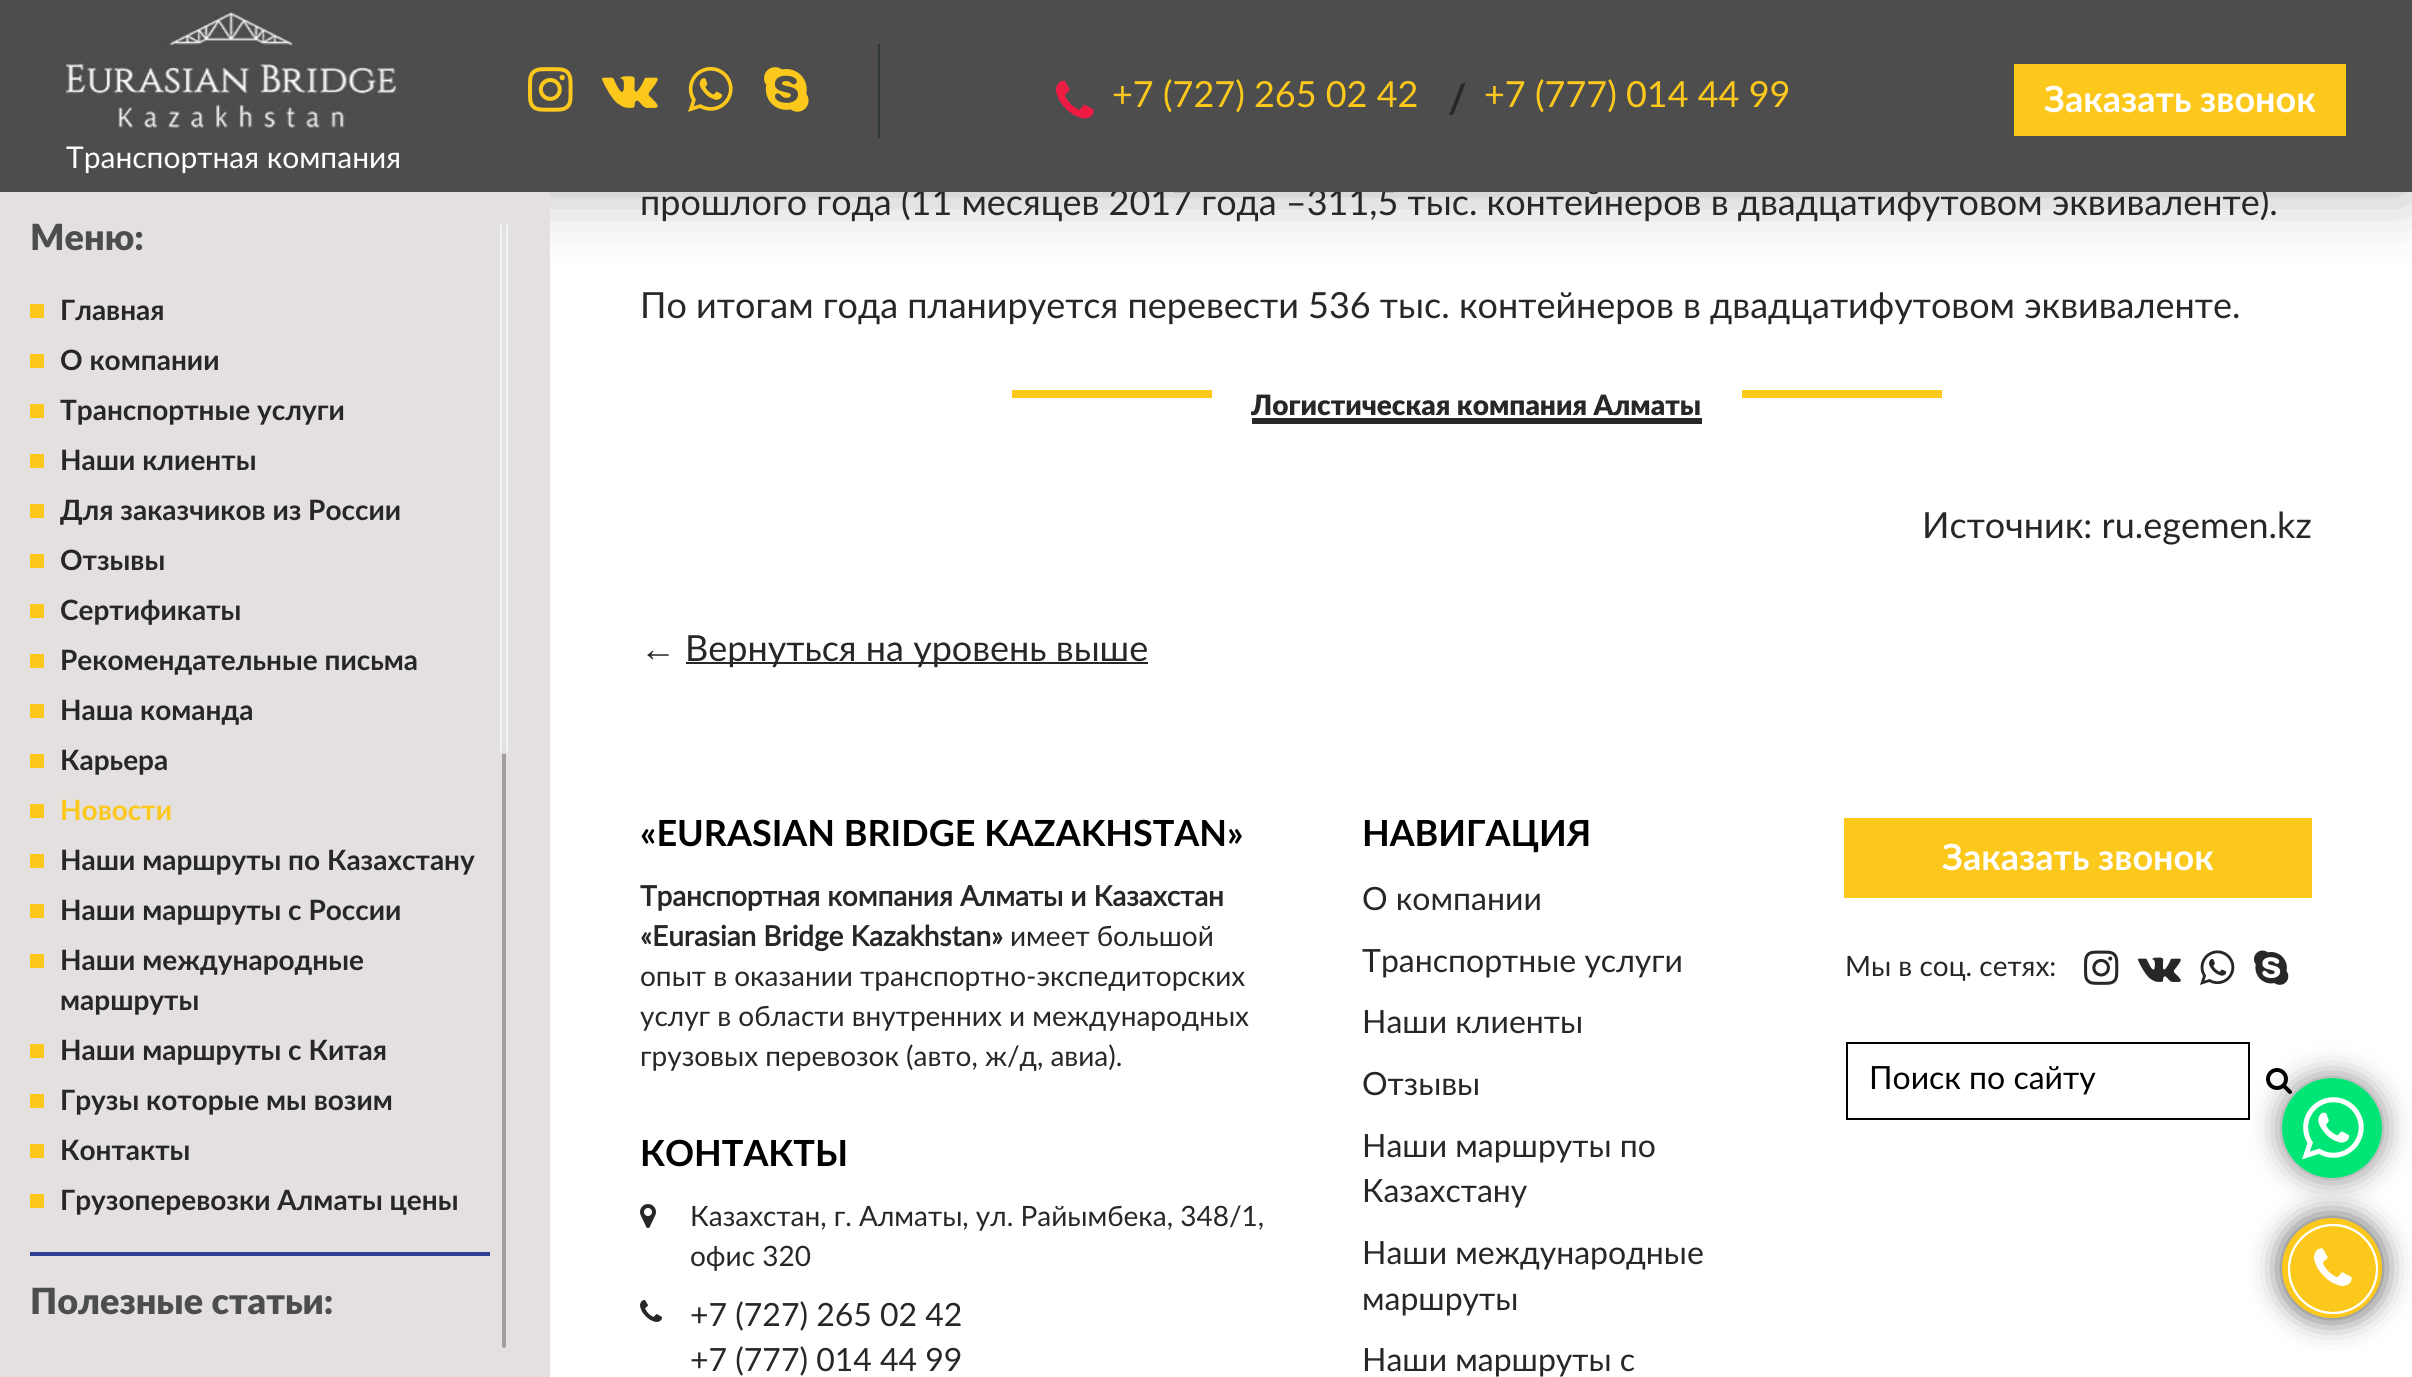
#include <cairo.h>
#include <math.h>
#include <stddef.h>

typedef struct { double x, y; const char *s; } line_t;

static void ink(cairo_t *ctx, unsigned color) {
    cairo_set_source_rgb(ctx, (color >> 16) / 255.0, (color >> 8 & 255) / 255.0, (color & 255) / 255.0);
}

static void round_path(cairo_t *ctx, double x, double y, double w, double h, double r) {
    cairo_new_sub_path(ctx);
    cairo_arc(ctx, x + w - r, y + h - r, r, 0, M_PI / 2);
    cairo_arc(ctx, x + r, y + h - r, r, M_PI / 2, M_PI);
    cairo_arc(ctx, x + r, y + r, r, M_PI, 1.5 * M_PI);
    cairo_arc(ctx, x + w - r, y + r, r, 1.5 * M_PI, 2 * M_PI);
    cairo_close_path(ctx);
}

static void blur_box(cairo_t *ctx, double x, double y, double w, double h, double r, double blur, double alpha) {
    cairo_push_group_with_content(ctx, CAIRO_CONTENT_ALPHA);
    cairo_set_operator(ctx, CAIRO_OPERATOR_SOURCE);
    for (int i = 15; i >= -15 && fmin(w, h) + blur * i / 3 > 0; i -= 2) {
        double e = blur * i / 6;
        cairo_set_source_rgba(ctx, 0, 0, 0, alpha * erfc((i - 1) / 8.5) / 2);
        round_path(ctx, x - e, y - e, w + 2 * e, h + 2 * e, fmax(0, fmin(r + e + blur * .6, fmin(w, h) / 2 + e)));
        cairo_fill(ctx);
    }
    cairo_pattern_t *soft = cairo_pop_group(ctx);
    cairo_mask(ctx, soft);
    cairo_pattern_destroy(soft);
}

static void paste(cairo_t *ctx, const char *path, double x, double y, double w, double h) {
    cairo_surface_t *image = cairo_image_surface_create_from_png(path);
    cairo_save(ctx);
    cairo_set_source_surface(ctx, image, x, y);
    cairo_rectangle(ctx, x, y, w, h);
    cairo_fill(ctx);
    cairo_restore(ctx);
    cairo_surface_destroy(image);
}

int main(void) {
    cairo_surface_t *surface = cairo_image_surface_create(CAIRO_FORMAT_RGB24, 2412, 1377);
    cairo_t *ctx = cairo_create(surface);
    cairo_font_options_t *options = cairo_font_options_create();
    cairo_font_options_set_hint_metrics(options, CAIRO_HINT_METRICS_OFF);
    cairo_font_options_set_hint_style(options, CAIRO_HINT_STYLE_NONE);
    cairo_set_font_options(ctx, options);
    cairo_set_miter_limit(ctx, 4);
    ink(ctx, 0xFFFFFF);
    cairo_paint(ctx);
    ink(ctx, 0x000000);
    blur_box(ctx, 0, 0, 2412, 192, 0, 35, 0.3);
    cairo_select_font_face(ctx, "Lato", CAIRO_FONT_SLANT_NORMAL, CAIRO_FONT_WEIGHT_NORMAL);
    cairo_set_font_size(ctx, 36);
    ink(ctx, 0x272727);
    cairo_move_to(ctx, 640, 215);
    cairo_show_text(ctx, "прошлого года (11 месяцев 2017 года –311,5 тыс. контейнеров в двадцатифутовом эквиваленте).");
    ink(ctx, 0x4D4D4D);
    cairo_rectangle(ctx, 0, 0, 2412, 192);
    cairo_fill(ctx);
    ink(ctx, 0x2F373A);
    cairo_rectangle(ctx, 878, 44, 2, 94);
    cairo_fill(ctx);
    paste(ctx, "media/1.png", 528, 67, 45, 45);
    paste(ctx, "media/2.png", 602, 76, 56, 32);
    paste(ctx, "media/3.png", 688, 67, 45, 45);
    paste(ctx, "media/4.png", 764, 67, 45, 45);
    paste(ctx, "media/5.png", 1056, 80, 38, 39);
    ink(ctx, 0xFCC81C);
    cairo_move_to(ctx, 1112, 107);
    cairo_show_text(ctx, "+7 (727) 265 02 42");
    cairo_select_font_face(ctx, "Lato", CAIRO_FONT_SLANT_NORMAL, CAIRO_FONT_WEIGHT_BOLD);
    cairo_set_font_size(ctx, 40);
    ink(ctx, 0x272727);
    cairo_move_to(ctx, 1448, 113);
    cairo_show_text(ctx, "/");
    cairo_select_font_face(ctx, "Lato", CAIRO_FONT_SLANT_NORMAL, CAIRO_FONT_WEIGHT_NORMAL);
    cairo_set_font_size(ctx, 36);
    ink(ctx, 0xFCC81C);
    cairo_move_to(ctx, 1484, 107);
    cairo_show_text(ctx, "+7 (777) 014 44 99");
    cairo_rectangle(ctx, 2014, 64, 332, 72);
    cairo_fill(ctx);
    cairo_select_font_face(ctx, "Lato", CAIRO_FONT_SLANT_NORMAL, CAIRO_FONT_WEIGHT_BOLD);
    ink(ctx, 0xFFFFFF);
    cairo_move_to(ctx, 2044, 112);
    cairo_show_text(ctx, "Заказать звонок");
    paste(ctx, "media/6.png", 66, 10, 330, 120);
    cairo_select_font_face(ctx, "Lato", CAIRO_FONT_SLANT_NORMAL, CAIRO_FONT_WEIGHT_NORMAL);
    cairo_set_font_size(ctx, 30);
    cairo_move_to(ctx, 66, 168);
    cairo_show_text(ctx, "Транспортная компания");
    ink(ctx, 0xE4E0E0);
    cairo_rectangle(ctx, 0, 192, 550, 1185);
    cairo_fill(ctx);
    cairo_select_font_face(ctx, "Lato Black", CAIRO_FONT_SLANT_NORMAL, CAIRO_FONT_WEIGHT_NORMAL);
    cairo_set_font_size(ctx, 36);
    ink(ctx, 0x4C4D4F);
    cairo_move_to(ctx, 30, 250);
    cairo_show_text(ctx, "Меню:");
    ink(ctx, 0xFCC81C);
    cairo_rectangle(ctx, 30, 304, 14, 14);
    cairo_fill(ctx);
    cairo_select_font_face(ctx, "Lato", CAIRO_FONT_SLANT_NORMAL, CAIRO_FONT_WEIGHT_BOLD);
    cairo_set_font_size(ctx, 28);
    ink(ctx, 0x272727);
    cairo_move_to(ctx, 60, 320);
    cairo_show_text(ctx, "Главная");
    ink(ctx, 0xFCC81C);
    cairo_rectangle(ctx, 30, 354, 14, 14);
    cairo_fill(ctx);
    ink(ctx, 0x272727);
    cairo_move_to(ctx, 60, 370);
    cairo_show_text(ctx, "О компании");
    ink(ctx, 0xFCC81C);
    cairo_rectangle(ctx, 30, 404, 14, 14);
    cairo_fill(ctx);
    ink(ctx, 0x272727);
    cairo_move_to(ctx, 60, 420);
    cairo_show_text(ctx, "Транспортные услуги");
    ink(ctx, 0xFCC81C);
    cairo_rectangle(ctx, 30, 454, 14, 14);
    cairo_fill(ctx);
    ink(ctx, 0x272727);
    cairo_move_to(ctx, 60, 470);
    cairo_show_text(ctx, "Наши клиенты");
    ink(ctx, 0xFCC81C);
    cairo_rectangle(ctx, 30, 504, 14, 14);
    cairo_fill(ctx);
    ink(ctx, 0x272727);
    cairo_move_to(ctx, 60, 520);
    cairo_show_text(ctx, "Для заказчиков из России");
    ink(ctx, 0xFCC81C);
    cairo_rectangle(ctx, 30, 554, 14, 14);
    cairo_fill(ctx);
    ink(ctx, 0x272727);
    cairo_move_to(ctx, 60, 570);
    cairo_show_text(ctx, "Отзывы");
    ink(ctx, 0xFCC81C);
    cairo_rectangle(ctx, 30, 604, 14, 14);
    cairo_fill(ctx);
    ink(ctx, 0x272727);
    cairo_move_to(ctx, 60, 620);
    cairo_show_text(ctx, "Сертификаты");
    ink(ctx, 0xFCC81C);
    cairo_rectangle(ctx, 30, 654, 14, 14);
    cairo_fill(ctx);
    ink(ctx, 0x272727);
    cairo_move_to(ctx, 60, 670);
    cairo_show_text(ctx, "Рекомендательные письма");
    ink(ctx, 0xFCC81C);
    cairo_rectangle(ctx, 30, 704, 14, 14);
    cairo_fill(ctx);
    ink(ctx, 0x272727);
    cairo_move_to(ctx, 60, 720);
    cairo_show_text(ctx, "Наша команда");
    ink(ctx, 0xFCC81C);
    cairo_rectangle(ctx, 30, 754, 14, 14);
    cairo_fill(ctx);
    ink(ctx, 0x272727);
    cairo_move_to(ctx, 60, 770);
    cairo_show_text(ctx, "Карьера");
    ink(ctx, 0xFCC81C);
    cairo_rectangle(ctx, 30, 804, 14, 14);
    cairo_fill(ctx);
    cairo_move_to(ctx, 60, 820);
    cairo_show_text(ctx, "Новости");
    cairo_rectangle(ctx, 30, 854, 14, 14);
    cairo_fill(ctx);
    ink(ctx, 0x272727);
    cairo_move_to(ctx, 60, 870);
    cairo_show_text(ctx, "Наши маршруты по Казахстану");
    ink(ctx, 0xFCC81C);
    cairo_rectangle(ctx, 30, 904, 14, 14);
    cairo_fill(ctx);
    ink(ctx, 0x272727);
    cairo_move_to(ctx, 60, 920);
    cairo_show_text(ctx, "Наши маршруты с России");
    ink(ctx, 0xFCC81C);
    cairo_rectangle(ctx, 30, 954, 14, 14);
    cairo_fill(ctx);
    ink(ctx, 0x272727);
    cairo_move_to(ctx, 60, 970);
    cairo_show_text(ctx, "Наши международные");
    cairo_move_to(ctx, 60, 1010);
    cairo_show_text(ctx, "маршруты");
    ink(ctx, 0xFCC81C);
    cairo_rectangle(ctx, 30, 1044, 14, 14);
    cairo_fill(ctx);
    ink(ctx, 0x272727);
    cairo_move_to(ctx, 60, 1060);
    cairo_show_text(ctx, "Наши маршруты с Китая");
    ink(ctx, 0xFCC81C);
    cairo_rectangle(ctx, 30, 1094, 14, 14);
    cairo_fill(ctx);
    ink(ctx, 0x272727);
    cairo_move_to(ctx, 60, 1110);
    cairo_show_text(ctx, "Грузы которые мы возим");
    ink(ctx, 0xFCC81C);
    cairo_rectangle(ctx, 30, 1144, 14, 14);
    cairo_fill(ctx);
    ink(ctx, 0x272727);
    cairo_move_to(ctx, 60, 1160);
    cairo_show_text(ctx, "Контакты");
    ink(ctx, 0xFCC81C);
    cairo_rectangle(ctx, 30, 1194, 14, 14);
    cairo_fill(ctx);
    ink(ctx, 0x272727);
    cairo_move_to(ctx, 60, 1210);
    cairo_show_text(ctx, "Грузоперевозки Алматы цены");
    ink(ctx, 0x2E3E99);
    cairo_rectangle(ctx, 30, 1252, 460, 4);
    cairo_fill(ctx);
    cairo_select_font_face(ctx, "Lato Black", CAIRO_FONT_SLANT_NORMAL, CAIRO_FONT_WEIGHT_NORMAL);
    cairo_set_font_size(ctx, 36);
    ink(ctx, 0x4C4D4F);
    cairo_move_to(ctx, 30, 1314);
    cairo_show_text(ctx, "Полезные статьи:");
    ink(ctx, 0xA09D9D);
    round_path(ctx, 502, 222, 4, 1126, 2);
    cairo_fill(ctx);
    cairo_set_source_rgba(ctx, 0.973, 0.969, 0.969, 0.75);
    round_path(ctx, 500, 222, 8, 532, 4);
    cairo_fill(ctx);
    cairo_select_font_face(ctx, "Lato", CAIRO_FONT_SLANT_NORMAL, CAIRO_FONT_WEIGHT_NORMAL);
    ink(ctx, 0x272727);
    cairo_move_to(ctx, 640, 318);
    cairo_show_text(ctx, "По итогам года планируется перевести 536 тыс. контейнеров в двадцатифутовом эквиваленте.");
    ink(ctx, 0xFCC81C);
    cairo_rectangle(ctx, 1012, 390, 200, 8);
    cairo_fill(ctx);
    cairo_select_font_face(ctx, "Lato Black", CAIRO_FONT_SLANT_NORMAL, CAIRO_FONT_WEIGHT_NORMAL);
    cairo_set_font_size(ctx, 28);
    ink(ctx, 0x272727);
    cairo_move_to(ctx, 1251, 415);
    cairo_show_text(ctx, "Логистическая компания Алматы");
    cairo_rectangle(ctx, 1252, 418, 450, 6);
    cairo_fill(ctx);
    ink(ctx, 0xFCC81C);
    cairo_rectangle(ctx, 1742, 390, 200, 8);
    cairo_fill(ctx);
    cairo_select_font_face(ctx, "Lato", CAIRO_FONT_SLANT_NORMAL, CAIRO_FONT_WEIGHT_NORMAL);
    cairo_set_font_size(ctx, 36);
    ink(ctx, 0x272727);
    cairo_move_to(ctx, 1922, 538);
    cairo_show_text(ctx, "Источник: ru.egemen.kz");
    cairo_select_font_face(ctx, "Liberation Serif", CAIRO_FONT_SLANT_NORMAL, CAIRO_FONT_WEIGHT_NORMAL);
    cairo_move_to(ctx, 640, 661);
    cairo_show_text(ctx, "←");
    cairo_rectangle(ctx, 686, 662, 462, 2);
    cairo_fill(ctx);
    cairo_select_font_face(ctx, "Lato", CAIRO_FONT_SLANT_NORMAL, CAIRO_FONT_WEIGHT_NORMAL);
    cairo_move_to(ctx, 685, 661);
    cairo_show_text(ctx, "Вернуться на уровень выше");
    cairo_select_font_face(ctx, "Lato", CAIRO_FONT_SLANT_NORMAL, CAIRO_FONT_WEIGHT_BOLD);
    ink(ctx, 0x000000);
    cairo_move_to(ctx, 640, 846);
    cairo_show_text(ctx, "«EURASIAN BRIDGE KAZAKHSTAN»");
    cairo_select_font_face(ctx, "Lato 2", CAIRO_FONT_SLANT_NORMAL, CAIRO_FONT_WEIGHT_BOLD);
    cairo_set_font_size(ctx, 28);
    ink(ctx, 0x272727);
    cairo_move_to(ctx, 640, 906);
    cairo_show_text(ctx, "Транспортная компания Алматы и Казахстан");
    cairo_move_to(ctx, 640, 946);
    cairo_show_text(ctx, "«Eurasian Bridge Kazakhstan»");
    cairo_select_font_face(ctx, "Lato", CAIRO_FONT_SLANT_NORMAL, CAIRO_FONT_WEIGHT_NORMAL);
    {
        static const line_t items[] = {
            {1010, 946, "имеет большой"},
            {640, 986, "опыт в оказании транспортно-экспедиторских"},
            {640, 1026, "услуг в области внутренних и международных"},
            {640, 1066, "грузовых перевозок (авто, ж/д, авиа)."},
        };
        for (size_t i = 0; i < sizeof items / sizeof *items; i++) {
            cairo_move_to(ctx, items[i].x, items[i].y);
            cairo_show_text(ctx, items[i].s);
        }
    }
    cairo_select_font_face(ctx, "Lato", CAIRO_FONT_SLANT_NORMAL, CAIRO_FONT_WEIGHT_BOLD);
    cairo_set_font_size(ctx, 36);
    ink(ctx, 0x000000);
    cairo_move_to(ctx, 640, 1166);
    cairo_show_text(ctx, "КОНТАКТЫ");
    paste(ctx, "media/7.png", 640, 1204, 16, 24);
    cairo_select_font_face(ctx, "Lato", CAIRO_FONT_SLANT_NORMAL, CAIRO_FONT_WEIGHT_NORMAL);
    cairo_set_font_size(ctx, 28);
    ink(ctx, 0x272727);
    cairo_move_to(ctx, 690, 1226);
    cairo_show_text(ctx, "Казахстан, г. Алматы, ул. Райымбека, 348/1,");
    cairo_move_to(ctx, 690, 1266);
    cairo_show_text(ctx, "офис 320");
    paste(ctx, "media/8.png", 640, 1300, 22, 22);
    cairo_set_font_size(ctx, 32);
    cairo_move_to(ctx, 690, 1326);
    cairo_show_text(ctx, "+7 (727) 265 02 42");
    cairo_move_to(ctx, 690, 1371);
    cairo_show_text(ctx, "+7 (777) 014 44 99");
    cairo_select_font_face(ctx, "Lato", CAIRO_FONT_SLANT_NORMAL, CAIRO_FONT_WEIGHT_BOLD);
    cairo_set_font_size(ctx, 36);
    ink(ctx, 0x000000);
    cairo_move_to(ctx, 1362, 846);
    cairo_show_text(ctx, "НАВИГАЦИЯ");
    cairo_select_font_face(ctx, "Lato", CAIRO_FONT_SLANT_NORMAL, CAIRO_FONT_WEIGHT_NORMAL);
    cairo_set_font_size(ctx, 32);
    ink(ctx, 0x272727);
    {
        static const line_t items[] = {
            {1362, 910, "О компании"},
            {1362, 972, "Транспортные услуги"},
            {1362, 1033, "Наши клиенты"},
            {1362, 1095, "Отзывы"},
            {1362, 1157, "Наши маршруты по"},
            {1362, 1202, "Казахстану"},
            {1362, 1264, "Наши международные"},
            {1362, 1310, "маршруты"},
            {1362, 1371, "Наши маршруты с"},
        };
        for (size_t i = 0; i < sizeof items / sizeof *items; i++) {
            cairo_move_to(ctx, items[i].x, items[i].y);
            cairo_show_text(ctx, items[i].s);
        }
    }
    ink(ctx, 0xFCC81C);
    cairo_rectangle(ctx, 1844, 818, 468, 80);
    cairo_fill(ctx);
    cairo_select_font_face(ctx, "Lato", CAIRO_FONT_SLANT_NORMAL, CAIRO_FONT_WEIGHT_BOLD);
    cairo_set_font_size(ctx, 36);
    ink(ctx, 0xFFFFFF);
    cairo_move_to(ctx, 1942, 870);
    cairo_show_text(ctx, "Заказать звонок");
    cairo_select_font_face(ctx, "Lato", CAIRO_FONT_SLANT_NORMAL, CAIRO_FONT_WEIGHT_NORMAL);
    cairo_set_font_size(ctx, 28);
    ink(ctx, 0x272727);
    cairo_move_to(ctx, 1845, 976);
    cairo_show_text(ctx, "Мы в соц. сетях:");
    paste(ctx, "media/9.png", 2084, 950, 35, 35);
    paste(ctx, "media/10.png", 2138, 957, 43, 25);
    paste(ctx, "media/11.png", 2200, 950, 35, 35);
    paste(ctx, "media/12.png", 2254, 950, 35, 35);
    cairo_rectangle(ctx, 1847, 1043, 402, 76);
    ink(ctx, 0x000000);
    cairo_stroke(ctx);
    cairo_set_font_size(ctx, 32);
    cairo_move_to(ctx, 1869, 1089);
    cairo_show_text(ctx, "Поиск по сайту");
    paste(ctx, "media/13.png", 2266, 1068, 26, 26);
    ink(ctx, 0x000000);
    blur_box(ctx, 2282, 1078, 100, 100, 50, 15, 0.5);
    ink(ctx, 0x00E676);
    cairo_arc(ctx, 2332, 1128, 50, 0, 2 * M_PI);
    cairo_fill(ctx);
    paste(ctx, "media/14.png", 2302, 1097, 62, 63);
    ink(ctx, 0x000000);
    blur_box(ctx, 2282, 1218, 100, 100, 50, 15, 0.7);
    ink(ctx, 0xFCC81C);
    cairo_arc(ctx, 2332, 1268, 50, 0, 2 * M_PI);
    cairo_fill(ctx);
    paste(ctx, "media/15.png", 2314, 1248, 38, 38);
    cairo_arc(ctx, 2333, 1269, 44, 0, 2 * M_PI);
    ink(ctx, 0xFFFFFF);
    cairo_stroke(ctx);
    cairo_arc(ctx, 2333, 1269, 44, 0, 2 * M_PI);
    cairo_stroke(ctx);
    cairo_surface_write_to_png(surface, "image.png");
    cairo_font_options_destroy(options);
    cairo_destroy(ctx);
    cairo_surface_destroy(surface);
    return 0;
}
